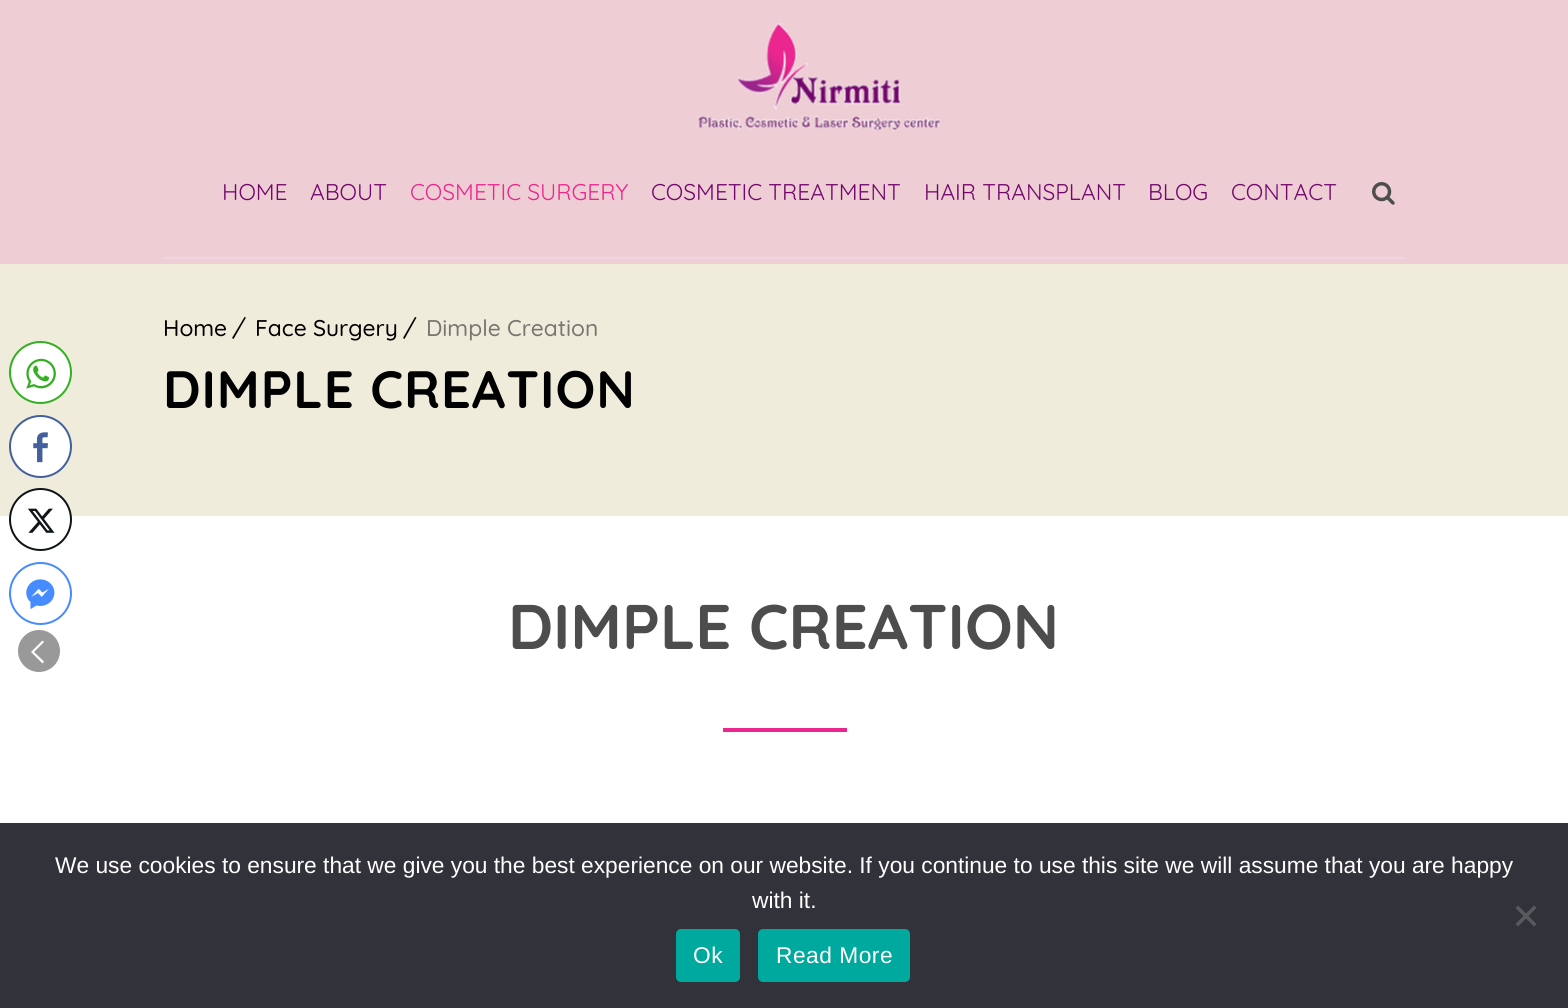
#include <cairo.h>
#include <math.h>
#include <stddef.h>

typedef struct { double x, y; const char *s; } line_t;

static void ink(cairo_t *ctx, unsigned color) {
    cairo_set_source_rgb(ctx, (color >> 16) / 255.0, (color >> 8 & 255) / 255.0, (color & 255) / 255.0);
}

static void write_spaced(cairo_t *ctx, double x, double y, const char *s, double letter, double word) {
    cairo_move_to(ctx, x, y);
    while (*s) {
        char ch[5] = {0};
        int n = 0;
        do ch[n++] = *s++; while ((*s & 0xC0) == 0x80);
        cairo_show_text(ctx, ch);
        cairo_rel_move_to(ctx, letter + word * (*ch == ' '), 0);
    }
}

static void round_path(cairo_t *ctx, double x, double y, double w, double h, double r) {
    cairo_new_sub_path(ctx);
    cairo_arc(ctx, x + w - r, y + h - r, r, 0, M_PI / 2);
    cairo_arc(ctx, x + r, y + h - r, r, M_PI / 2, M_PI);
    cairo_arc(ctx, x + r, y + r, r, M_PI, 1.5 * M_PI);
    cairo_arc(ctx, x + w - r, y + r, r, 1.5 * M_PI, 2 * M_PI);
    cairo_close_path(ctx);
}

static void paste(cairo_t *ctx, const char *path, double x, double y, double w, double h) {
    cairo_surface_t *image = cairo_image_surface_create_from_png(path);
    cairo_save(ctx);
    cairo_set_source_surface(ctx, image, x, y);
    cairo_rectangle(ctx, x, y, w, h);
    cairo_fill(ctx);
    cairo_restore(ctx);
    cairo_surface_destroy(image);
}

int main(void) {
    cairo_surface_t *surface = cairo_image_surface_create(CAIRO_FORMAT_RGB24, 1568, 1008);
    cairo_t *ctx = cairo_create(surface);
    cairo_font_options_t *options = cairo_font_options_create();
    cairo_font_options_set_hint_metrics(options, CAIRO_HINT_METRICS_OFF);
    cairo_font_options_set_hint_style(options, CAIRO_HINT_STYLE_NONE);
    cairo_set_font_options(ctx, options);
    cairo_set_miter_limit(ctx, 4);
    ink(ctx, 0xFFFFFF);
    cairo_paint(ctx);
    ink(ctx, 0xF0ECDC);
    cairo_rectangle(ctx, 0, 264, 1568, 252);
    cairo_fill(ctx);
    ink(ctx, 0xFFFFFF);
    cairo_arc(ctx, 40.5, 372.5, 30.5, 0, 2 * M_PI);
    cairo_fill_preserve(ctx);
    ink(ctx, 0x34AF23);
    cairo_stroke(ctx);
    paste(ctx, "media/1.png", 26, 358, 30, 31);
    ink(ctx, 0xFFFFFF);
    cairo_arc(ctx, 40.5, 446.5, 30.5, 0, 2 * M_PI);
    cairo_fill_preserve(ctx);
    ink(ctx, 0x43609C);
    cairo_stroke(ctx);
    paste(ctx, "media/2.png", 33, 432, 15, 31);
    ink(ctx, 0xFFFFFF);
    cairo_arc(ctx, 40.5, 519.5, 30.5, 0, 2 * M_PI);
    cairo_fill_preserve(ctx);
    ink(ctx, 0x0F1419);
    cairo_stroke(ctx);
    paste(ctx, "media/3.png", 28, 508, 27, 25);
    cairo_arc(ctx, 40.5, 593.5, 30.5, 0, 2 * M_PI);
    ink(ctx, 0x468BFF);
    cairo_stroke(ctx);
    paste(ctx, "media/4.png", 26, 579, 29, 30);
    ink(ctx, 0x999999);
    cairo_arc(ctx, 39, 651, 21, 0, 2 * M_PI);
    cairo_fill(ctx);
    ink(ctx, 0xFFFFFF);
    cairo_new_path(ctx);
    cairo_move_to(ctx, 44, 642);
    cairo_line_to(ctx, 42.5, 640.5);
    cairo_line_to(ctx, 31, 652);
    cairo_line_to(ctx, 42.5, 663.5);
    cairo_line_to(ctx, 44, 661.5);
    cairo_line_to(ctx, 34, 652);
    cairo_fill(ctx);
    ink(ctx, 0xEECED4);
    cairo_rectangle(ctx, 0, 0, 1568, 264);
    cairo_fill(ctx);
    paste(ctx, "media/5.png", 697, 23, 244, 108);
    cairo_select_font_face(ctx, "Quicksand", CAIRO_FONT_SLANT_NORMAL, CAIRO_FONT_WEIGHT_NORMAL);
    cairo_set_font_size(ctx, 22.75);
    ink(ctx, 0x73076D);
    cairo_move_to(ctx, 222, 200);
    cairo_show_text(ctx, "HOME");
    cairo_move_to(ctx, 310, 200);
    cairo_show_text(ctx, "ABOUT");
    ink(ctx, 0xEC268F);
    cairo_move_to(ctx, 410, 200);
    cairo_show_text(ctx, "COSMETIC SURGERY");
    ink(ctx, 0x73076D);
    {
        static const line_t items[] = {
            {651, 200, "COSMETIC TREATMENT"},
            {924, 200, "HAIR TRANSPLANT"},
            {1148, 200, "BLOG"},
            {1231, 200, "CONTACT"},
        };
        for (size_t i = 0; i < sizeof items / sizeof *items; i++) {
            cairo_move_to(ctx, items[i].x, items[i].y);
            cairo_show_text(ctx, items[i].s);
        }
    }
    paste(ctx, "media/6.png", 1372, 182, 23, 23);
    ink(ctx, 0xF2D4DE);
    cairo_rectangle(ctx, 163, 257, 1242, 2);
    cairo_fill(ctx);
    cairo_select_font_face(ctx, "Quicksand Medium", CAIRO_FONT_SLANT_NORMAL, CAIRO_FONT_WEIGHT_NORMAL);
    ink(ctx, 0x000000);
    cairo_move_to(ctx, 163, 336);
    cairo_show_text(ctx, "Home");
    cairo_new_path(ctx);
    cairo_move_to(ctx, 244.5, 317);
    cairo_line_to(ctx, 246, 317.5);
    cairo_line_to(ctx, 233.5, 339);
    cairo_line_to(ctx, 232, 338);
    cairo_close_path(ctx);
    cairo_fill(ctx);
    cairo_move_to(ctx, 255, 336);
    cairo_show_text(ctx, "Face Surgery");
    cairo_new_path(ctx);
    cairo_move_to(ctx, 415, 317);
    cairo_line_to(ctx, 416.5, 317.5);
    cairo_line_to(ctx, 404.5, 339);
    cairo_line_to(ctx, 403, 338);
    cairo_close_path(ctx);
    cairo_fill(ctx);
    ink(ctx, 0x78766E);
    cairo_move_to(ctx, 426, 336);
    cairo_show_text(ctx, "Dimple Creation");
    cairo_select_font_face(ctx, "Quicksand", CAIRO_FONT_SLANT_NORMAL, CAIRO_FONT_WEIGHT_BOLD);
    cairo_set_font_size(ctx, 52.5);
    ink(ctx, 0x000000);
    write_spaced(ctx, 163, 408, "DIMPLE CREATION", 0.9, 0);
    cairo_set_font_size(ctx, 63);
    ink(ctx, 0x4D4D4D);
    cairo_move_to(ctx, 508, 649);
    cairo_show_text(ctx, "DIMPLE CREATION");
    ink(ctx, 0xEC268F);
    cairo_rectangle(ctx, 723, 728, 124, 4);
    cairo_fill(ctx);
    ink(ctx, 0x32323A);
    cairo_rectangle(ctx, 0, 823, 1568, 185);
    cairo_fill(ctx);
    cairo_select_font_face(ctx, "Liberation Sans", CAIRO_FONT_SLANT_NORMAL, CAIRO_FONT_WEIGHT_NORMAL);
    cairo_set_font_size(ctx, 22.75);
    ink(ctx, 0xFFFFFF);
    cairo_move_to(ctx, 55, 873);
    cairo_show_text(ctx, "We use cookies to ensure that we give you the best experience on our website. If you continue to use this site we will assume that you are happy");
    cairo_move_to(ctx, 752, 908);
    cairo_show_text(ctx, "with it.");
    ink(ctx, 0x59595D);
    cairo_new_path(ctx);
    cairo_move_to(ctx, 1534, 905.5);
    cairo_line_to(ctx, 1536.5, 908);
    cairo_line_to(ctx, 1518, 926.5);
    cairo_line_to(ctx, 1515.5, 924);
    cairo_close_path(ctx);
    cairo_fill(ctx);
    cairo_new_path(ctx);
    cairo_move_to(ctx, 1515.5, 908);
    cairo_line_to(ctx, 1518, 905.5);
    cairo_line_to(ctx, 1536.5, 924);
    cairo_line_to(ctx, 1534, 926.5);
    cairo_close_path(ctx);
    cairo_fill(ctx);
    ink(ctx, 0x00A99D);
    round_path(ctx, 676, 929, 64, 53, 5);
    cairo_fill(ctx);
    ink(ctx, 0xFFFFFF);
    write_spaced(ctx, 693, 963, "Ok", 0.5, 0);
    ink(ctx, 0x00A99D);
    round_path(ctx, 758, 929, 152, 53, 5);
    cairo_fill(ctx);
    ink(ctx, 0xFFFFFF);
    write_spaced(ctx, 776, 963, "Read More", 0.5, 0);
    cairo_surface_write_to_png(surface, "image.png");
    cairo_font_options_destroy(options);
    cairo_destroy(ctx);
    cairo_surface_destroy(surface);
    return 0;
}
